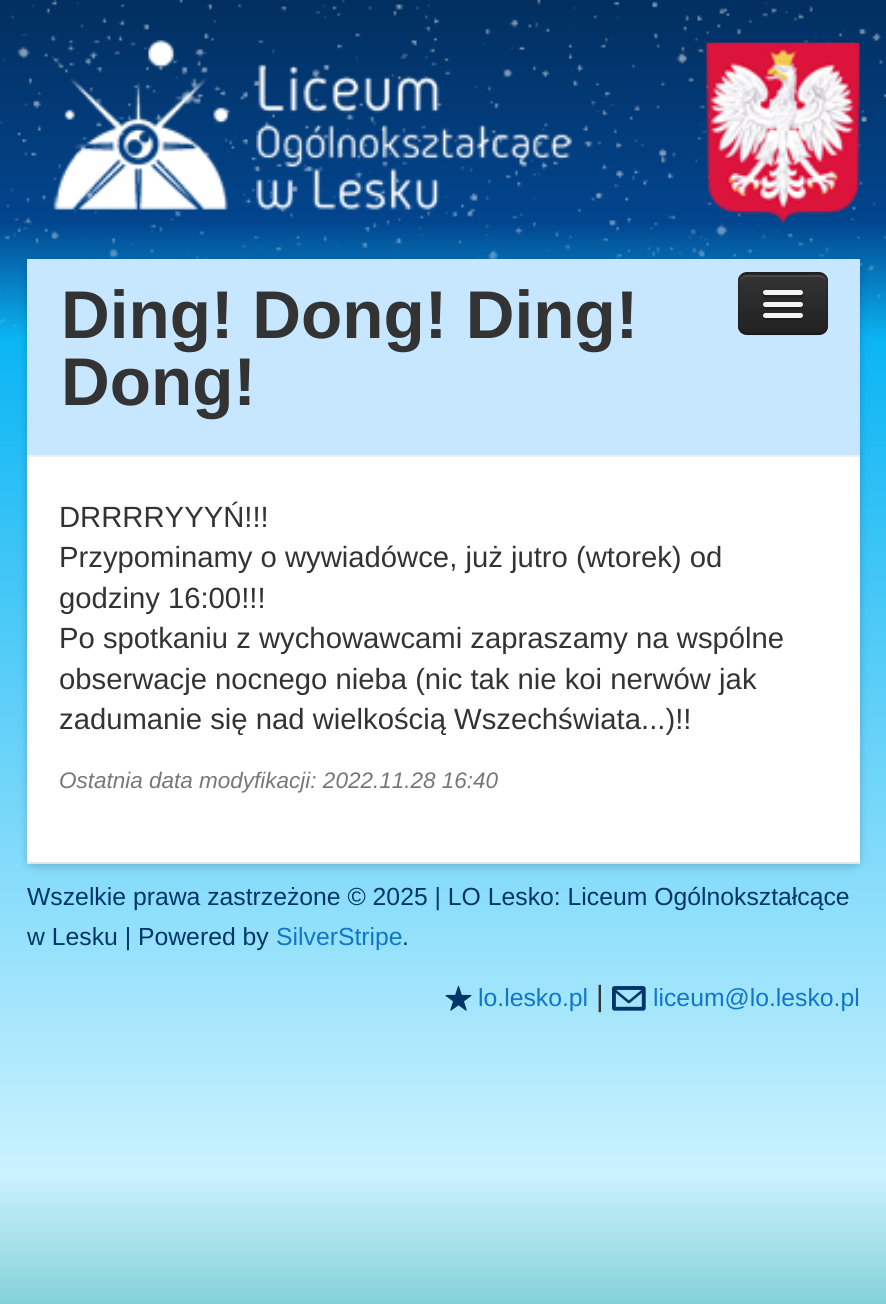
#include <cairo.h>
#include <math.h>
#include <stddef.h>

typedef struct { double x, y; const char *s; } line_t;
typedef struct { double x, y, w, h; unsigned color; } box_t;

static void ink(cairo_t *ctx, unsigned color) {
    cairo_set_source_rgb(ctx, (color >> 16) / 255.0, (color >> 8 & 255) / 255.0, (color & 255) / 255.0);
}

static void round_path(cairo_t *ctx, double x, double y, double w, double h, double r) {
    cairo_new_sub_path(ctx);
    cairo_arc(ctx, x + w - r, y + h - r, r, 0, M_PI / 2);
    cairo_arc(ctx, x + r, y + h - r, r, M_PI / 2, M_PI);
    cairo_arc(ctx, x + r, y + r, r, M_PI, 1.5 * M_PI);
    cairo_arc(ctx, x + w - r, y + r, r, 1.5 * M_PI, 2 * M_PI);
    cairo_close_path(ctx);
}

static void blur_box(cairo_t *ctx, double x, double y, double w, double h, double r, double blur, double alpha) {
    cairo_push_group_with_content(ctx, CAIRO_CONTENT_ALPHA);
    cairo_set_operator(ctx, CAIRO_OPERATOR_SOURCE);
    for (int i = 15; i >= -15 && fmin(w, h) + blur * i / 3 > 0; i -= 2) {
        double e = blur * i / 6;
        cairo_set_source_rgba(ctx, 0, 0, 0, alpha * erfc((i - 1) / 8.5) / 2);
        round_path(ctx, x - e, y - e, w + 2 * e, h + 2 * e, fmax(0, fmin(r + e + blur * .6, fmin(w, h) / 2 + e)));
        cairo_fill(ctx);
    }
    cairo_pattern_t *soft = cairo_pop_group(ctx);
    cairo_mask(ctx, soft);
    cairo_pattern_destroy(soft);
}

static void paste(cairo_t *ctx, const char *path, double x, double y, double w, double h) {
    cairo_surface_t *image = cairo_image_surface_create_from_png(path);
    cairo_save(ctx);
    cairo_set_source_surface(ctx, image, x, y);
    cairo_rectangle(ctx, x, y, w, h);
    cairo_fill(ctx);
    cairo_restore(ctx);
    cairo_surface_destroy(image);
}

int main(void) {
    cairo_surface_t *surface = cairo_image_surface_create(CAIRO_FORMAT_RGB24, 886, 1304);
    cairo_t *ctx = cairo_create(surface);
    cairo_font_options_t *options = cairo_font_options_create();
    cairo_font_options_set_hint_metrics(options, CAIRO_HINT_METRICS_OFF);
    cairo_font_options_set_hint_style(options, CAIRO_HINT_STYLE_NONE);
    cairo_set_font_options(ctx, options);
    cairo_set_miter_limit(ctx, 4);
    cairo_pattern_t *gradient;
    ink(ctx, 0xFFFFFF);
    cairo_paint(ctx);
    gradient = cairo_pattern_create_linear(443, 0, 443, 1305);
    cairo_pattern_add_color_stop_rgba(gradient, 0, 0.008, 0.184, 0.376, 1);
    cairo_pattern_add_color_stop_rgba(gradient, 0.17, 0.008, 0.271, 0.557, 1);
    cairo_pattern_add_color_stop_rgba(gradient, 0.26, 0.043, 0.71, 0.957, 1);
    cairo_pattern_add_color_stop_rgba(gradient, 0.9, 0.796, 0.949, 0.996, 1);
    cairo_pattern_add_color_stop_rgba(gradient, 1, 0.522, 0.82, 0.847, 1);
    cairo_set_source(ctx, gradient);
    cairo_pattern_destroy(gradient);
    cairo_rectangle(ctx, 0, 0, 886, 1304);
    cairo_fill(ctx);
    paste(ctx, "media/1.png", 0, 0, 886, 332);
    paste(ctx, "media/2.png", 53, 40, 520, 170);
    paste(ctx, "media/3.png", 706, 42, 154, 181);
    ink(ctx, 0x000032);
    blur_box(ctx, 27, 261, 833, 605, 7, 4.5, 0.2);
    ink(ctx, 0xC7E6FF);
    cairo_rectangle(ctx, 27, 259, 833, 196);
    cairo_fill(ctx);
    ink(ctx, 0xCBE8FF);
    cairo_new_path(ctx);
    cairo_move_to(ctx, 738, 326);
    cairo_curve_to(ctx, 738, 340, 747, 338, 759, 338);
    cairo_line_to(ctx, 807, 338);
    cairo_curve_to(ctx, 819, 338, 828, 340, 828, 326);
    cairo_curve_to(ctx, 828, 331, 824, 335, 819, 335);
    cairo_line_to(ctx, 747, 335);
    cairo_curve_to(ctx, 742, 335, 738, 331, 738, 326);
    cairo_close_path(ctx);
    cairo_fill(ctx);
    ink(ctx, 0x222222);
    round_path(ctx, 738, 272, 90, 63, 9);
    cairo_fill(ctx);
    cairo_save(ctx);
    round_path(ctx, 738, 272, 90, 63, 9);
    cairo_clip(ctx);
    gradient = cairo_pattern_create_linear(783, 275, 783, 333);
    cairo_pattern_add_color_stop_rgba(gradient, 0, 0.2, 0.2, 0.2, 1);
    cairo_pattern_add_color_stop_rgba(gradient, 1, 0.133, 0.133, 0.133, 1);
    cairo_set_source(ctx, gradient);
    cairo_pattern_destroy(gradient);
    cairo_rectangle(ctx, 738, 275, 90, 58);
    cairo_fill(ctx);
    cairo_restore(ctx);
    ink(ctx, 0x474747);
    cairo_new_path(ctx);
    cairo_move_to(ctx, 747, 277);
    cairo_line_to(ctx, 819, 277);
    cairo_curve_to(ctx, 823, 277, 826, 280, 826, 284);
    cairo_curve_to(ctx, 826, 272, 816, 275, 807, 275);
    cairo_line_to(ctx, 759, 275);
    cairo_curve_to(ctx, 750, 275, 740, 272, 740, 284);
    cairo_curve_to(ctx, 740, 280, 743, 277, 747, 277);
    cairo_close_path(ctx);
    cairo_fill(ctx);
    cairo_new_path(ctx);
    cairo_move_to(ctx, 824.5, 332);
    cairo_curve_to(ctx, 823, 333.5, 821, 334, 819, 334);
    cairo_line_to(ctx, 747, 334);
    cairo_curve_to(ctx, 745, 334, 743, 333.5, 741.5, 332);
    cairo_set_source_rgba(ctx, 0, 0, 0, 0.25);
    cairo_set_line_width(ctx, 2.2);
    cairo_stroke(ctx);
    cairo_new_path(ctx);
    cairo_move_to(ctx, 741.5, 332);
    cairo_curve_to(ctx, 740, 330.5, 739, 328.5, 739, 326);
    cairo_line_to(ctx, 739, 281);
    cairo_curve_to(ctx, 739, 279, 740, 277, 741.5, 275.5);
    cairo_curve_to(ctx, 743, 274, 745, 273.5, 747, 273.5);
    cairo_line_to(ctx, 819, 273.5);
    cairo_curve_to(ctx, 821, 273.5, 823, 274, 824.5, 275.5);
    cairo_curve_to(ctx, 826, 277, 827, 279, 827, 281);
    cairo_line_to(ctx, 827, 326);
    cairo_curve_to(ctx, 827, 328.5, 826, 330.5, 824.5, 332);
    cairo_set_source_rgba(ctx, 0, 0, 0, 0.1);
    cairo_stroke(ctx);
    ink(ctx, 0x222222);
    cairo_new_path(ctx);
    cairo_move_to(ctx, 763, 294);
    cairo_curve_to(ctx, 760, 299, 771, 298, 771, 298);
    cairo_line_to(ctx, 795, 298);
    cairo_curve_to(ctx, 795, 298, 806, 299, 803, 294);
    cairo_curve_to(ctx, 801, 295, 765, 295, 763, 294);
    cairo_close_path(ctx);
    cairo_fill(ctx);
    ink(ctx, 0xF5F5F5);
    round_path(ctx, 763, 290, 40, 5, 2.5);
    cairo_fill(ctx);
    ink(ctx, 0x1F1F1F);
    cairo_new_path(ctx);
    cairo_move_to(ctx, 763, 305);
    cairo_curve_to(ctx, 761, 310, 771, 309, 771, 309);
    cairo_line_to(ctx, 795, 309);
    cairo_curve_to(ctx, 795, 309, 805, 310, 803, 305);
    cairo_curve_to(ctx, 801, 307, 765, 307, 763, 305);
    cairo_close_path(ctx);
    cairo_fill(ctx);
    ink(ctx, 0xF5F5F5);
    round_path(ctx, 763, 302, 40, 5, 2.5);
    cairo_fill(ctx);
    ink(ctx, 0x1D1D1D);
    cairo_new_path(ctx);
    cairo_move_to(ctx, 763, 316);
    cairo_curve_to(ctx, 761, 321, 770, 320, 771, 320);
    cairo_line_to(ctx, 795, 320);
    cairo_curve_to(ctx, 796, 320, 805, 321, 803, 316);
    cairo_line_to(ctx, 801, 317);
    cairo_line_to(ctx, 765, 317);
    cairo_close_path(ctx);
    cairo_fill(ctx);
    ink(ctx, 0xF5F5F5);
    round_path(ctx, 763, 313, 40, 5, 2.5);
    cairo_fill(ctx);
    {
        static const box_t items[] = {
            {27, 457, 833, 405, 0xFFFFFF},
            {27, 862, 833, 2, 0xE5E5E5},
            {27, 455, 833, 2, 0xEEEEEE},
        };
        for (size_t i = 0; i < sizeof items / sizeof *items; i++) {
            ink(ctx, items[i].color);
            cairo_rectangle(ctx, items[i].x, items[i].y, items[i].w, items[i].h);
            cairo_fill(ctx);
        }
    }
    cairo_select_font_face(ctx, "Liberation Sans", CAIRO_FONT_SLANT_NORMAL, CAIRO_FONT_WEIGHT_BOLD);
    cairo_set_font_size(ctx, 67.5);
    ink(ctx, 0x333333);
    cairo_move_to(ctx, 61, 338);
    cairo_show_text(ctx, "Ding! Dong! Ding!");
    cairo_move_to(ctx, 61, 405);
    cairo_show_text(ctx, "Dong!");
    cairo_select_font_face(ctx, "Liberation Sans", CAIRO_FONT_SLANT_NORMAL, CAIRO_FONT_WEIGHT_NORMAL);
    cairo_set_font_size(ctx, 29.25);
    {
        static const line_t items[] = {
            {59, 527, "DRRRRYYYŃ!!!"},
            {59, 567, "Przypominamy o wywiadówce, już jutro (wtorek) od"},
            {59, 608, "godziny 16:00!!!"},
            {59, 648, "Po spotkaniu z wychowawcami zapraszamy na wspólne"},
            {59, 689, "obserwacje nocnego nieba (nic tak nie koi nerwów jak"},
            {59, 729, "zadumanie się nad wielkością Wszechświata...)!!"},
        };
        for (size_t i = 0; i < sizeof items / sizeof *items; i++) {
            cairo_move_to(ctx, items[i].x, items[i].y);
            cairo_show_text(ctx, items[i].s);
        }
    }
    cairo_select_font_face(ctx, "Liberation Sans", CAIRO_FONT_SLANT_ITALIC, CAIRO_FONT_WEIGHT_NORMAL);
    cairo_set_font_size(ctx, 22.5);
    ink(ctx, 0x777777);
    cairo_move_to(ctx, 59, 788);
    cairo_show_text(ctx, "Ostatnia data modyfikacji: 2022.11.28 16:40");
    cairo_select_font_face(ctx, "Liberation Sans", CAIRO_FONT_SLANT_NORMAL, CAIRO_FONT_WEIGHT_NORMAL);
    cairo_set_font_size(ctx, 24.75);
    ink(ctx, 0x013569);
    cairo_move_to(ctx, 27, 905);
    cairo_show_text(ctx, "Wszelkie prawa zastrzeżone © 2025 | LO Lesko: Liceum Ogólnokształcące");
    cairo_move_to(ctx, 27, 945);
    cairo_show_text(ctx, "w Lesku | Powered by");
    ink(ctx, 0x0F76CA);
    cairo_move_to(ctx, 276, 945);
    cairo_show_text(ctx, "SilverStripe");
    ink(ctx, 0x013569);
    cairo_move_to(ctx, 402, 945);
    cairo_show_text(ctx, ".");
    paste(ctx, "media/4.png", 445, 986, 27, 25);
    ink(ctx, 0x0F76CA);
    cairo_move_to(ctx, 478, 1006);
    cairo_show_text(ctx, "lo.lesko.pl");
    cairo_set_font_size(ctx, 29.25);
    ink(ctx, 0x333333);
    cairo_move_to(ctx, 596, 1006);
    cairo_show_text(ctx, "|");
    paste(ctx, "media/5.png", 612, 986, 34, 25);
    cairo_set_font_size(ctx, 24.75);
    ink(ctx, 0x0F76CA);
    cairo_move_to(ctx, 653, 1006);
    cairo_show_text(ctx, "liceum@lo.lesko.pl");
    cairo_surface_write_to_png(surface, "image.png");
    cairo_font_options_destroy(options);
    cairo_destroy(ctx);
    cairo_surface_destroy(surface);
    return 0;
}
